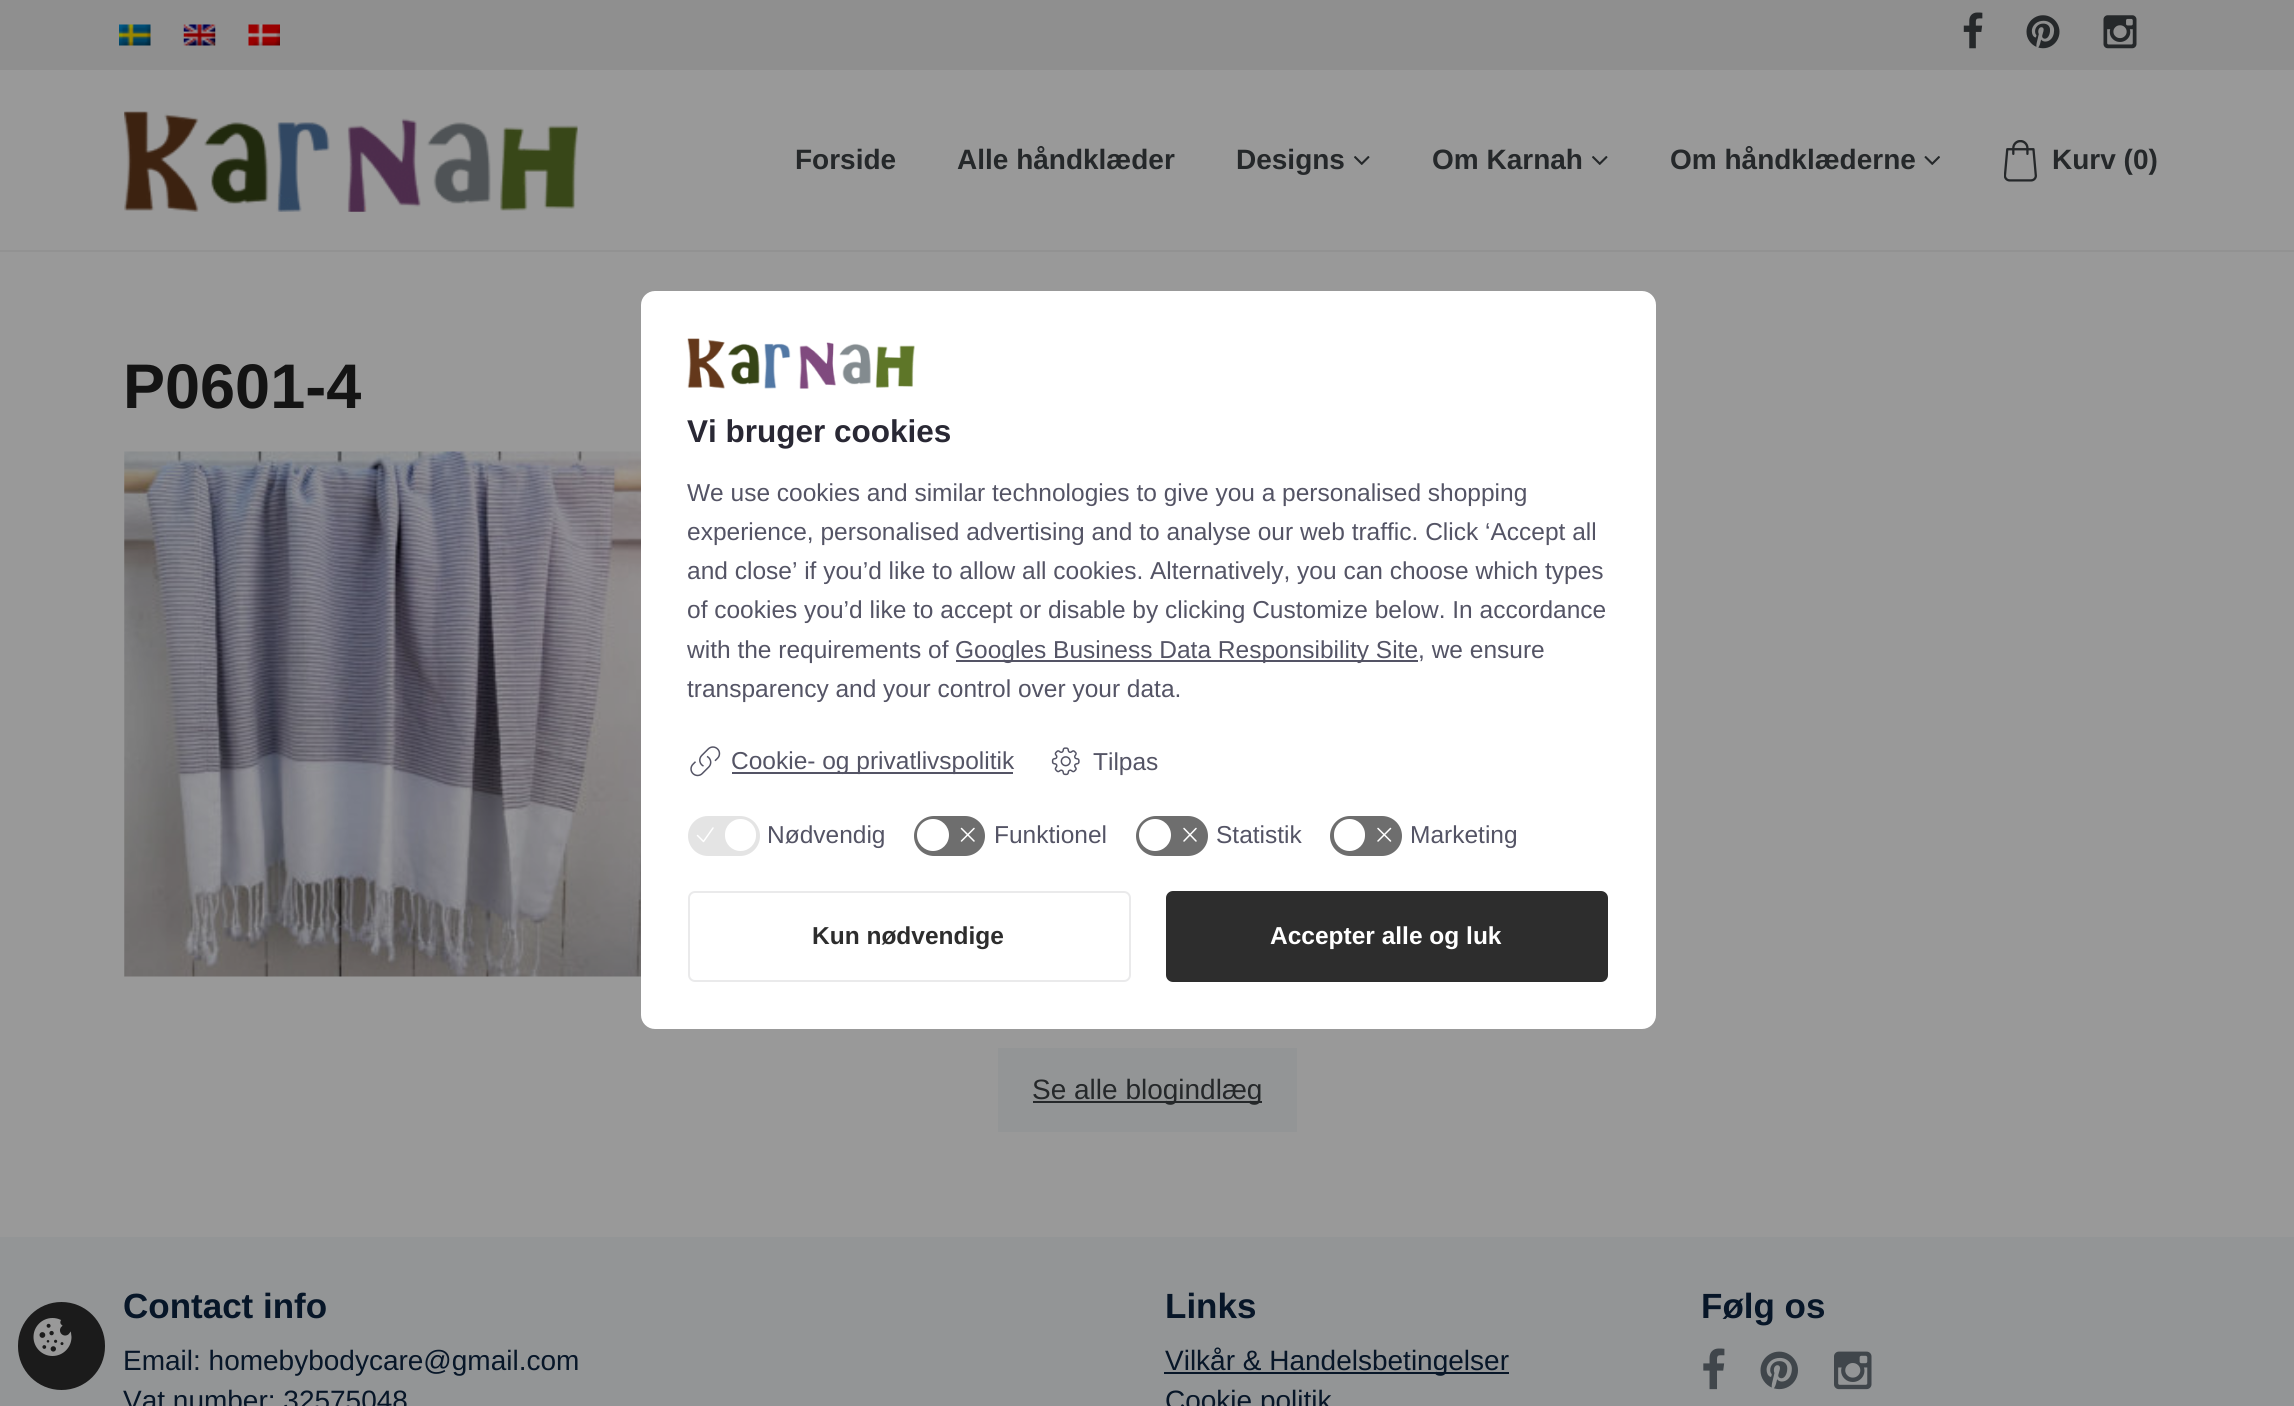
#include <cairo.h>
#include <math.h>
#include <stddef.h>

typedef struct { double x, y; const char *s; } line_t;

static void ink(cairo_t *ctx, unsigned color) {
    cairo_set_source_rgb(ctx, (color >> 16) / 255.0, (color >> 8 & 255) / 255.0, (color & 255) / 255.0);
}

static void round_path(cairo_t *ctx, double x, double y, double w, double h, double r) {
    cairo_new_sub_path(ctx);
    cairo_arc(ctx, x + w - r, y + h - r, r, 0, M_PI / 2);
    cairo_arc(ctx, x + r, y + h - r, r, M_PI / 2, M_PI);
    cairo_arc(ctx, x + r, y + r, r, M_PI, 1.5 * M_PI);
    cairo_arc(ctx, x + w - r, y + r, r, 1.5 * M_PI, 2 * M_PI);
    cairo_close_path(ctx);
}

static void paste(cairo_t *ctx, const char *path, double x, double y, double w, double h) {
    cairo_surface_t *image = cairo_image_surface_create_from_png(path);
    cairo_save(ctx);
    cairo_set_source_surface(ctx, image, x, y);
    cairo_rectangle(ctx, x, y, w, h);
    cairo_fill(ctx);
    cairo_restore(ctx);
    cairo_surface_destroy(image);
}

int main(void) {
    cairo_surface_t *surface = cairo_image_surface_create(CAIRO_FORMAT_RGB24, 2294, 1406);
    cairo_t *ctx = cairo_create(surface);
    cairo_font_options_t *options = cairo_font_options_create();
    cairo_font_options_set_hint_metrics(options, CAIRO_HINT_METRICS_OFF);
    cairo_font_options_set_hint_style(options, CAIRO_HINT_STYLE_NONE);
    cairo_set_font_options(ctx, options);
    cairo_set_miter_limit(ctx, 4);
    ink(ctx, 0x999999);
    cairo_paint(ctx);
    ink(ctx, 0x8F8F8F);
    cairo_rectangle(ctx, 0, 0, 2294, 70);
    cairo_fill(ctx);
    paste(ctx, "media/1.png", 119, 24, 32, 22);
    paste(ctx, "media/2.png", 183, 24, 33, 22);
    paste(ctx, "media/3.png", 248, 24, 32, 22);
    paste(ctx, "media/4.png", 1963, 12, 20, 37);
    paste(ctx, "media/5.png", 2026, 15, 34, 34);
    paste(ctx, "media/6.png", 2103, 15, 34, 34);
    ink(ctx, 0x929292);
    cairo_rectangle(ctx, 0, 250, 2294, 2);
    cairo_fill(ctx);
    paste(ctx, "media/7.png", 124, 111, 454, 101);
    cairo_select_font_face(ctx, "Liberation Sans", CAIRO_FONT_SLANT_NORMAL, CAIRO_FONT_WEIGHT_BOLD);
    cairo_set_font_size(ctx, 28);
    ink(ctx, 0x25282A);
    {
        static const line_t items[] = {
            {795, 169, "Forside"},
            {957, 169, "Alle håndklæder"},
            {1236, 169, "Designs"},
        };
        for (size_t i = 0; i < sizeof items / sizeof *items; i++) {
            cairo_move_to(ctx, items[i].x, items[i].y);
            cairo_show_text(ctx, items[i].s);
        }
    }
    paste(ctx, "media/8.png", 1354, 156, 16, 9);
    cairo_move_to(ctx, 1432, 169);
    cairo_show_text(ctx, "Om Karnah");
    paste(ctx, "media/8.png", 1592, 156, 16, 9);
    cairo_move_to(ctx, 1670, 169);
    cairo_show_text(ctx, "Om håndklæderne");
    paste(ctx, "media/9.png", 1924, 156, 16, 9);
    paste(ctx, "media/10.png", 2004, 140, 33, 42);
    cairo_move_to(ctx, 2052, 169);
    cairo_show_text(ctx, "Kurv (0)");
    cairo_set_font_size(ctx, 63);
    ink(ctx, 0x141414);
    cairo_move_to(ctx, 123, 408);
    cairo_show_text(ctx, "P0601-4");
    paste(ctx, "media/11.png", 124, 451, 517, 526);
    ink(ctx, 0x939596);
    cairo_rectangle(ctx, 998, 1048, 299, 84);
    cairo_fill(ctx);
    ink(ctx, 0x25282A);
    cairo_rectangle(ctx, 1033, 1101, 229, 2);
    cairo_fill(ctx);
    cairo_select_font_face(ctx, "Liberation Sans", CAIRO_FONT_SLANT_NORMAL, CAIRO_FONT_WEIGHT_NORMAL);
    cairo_set_font_size(ctx, 28);
    cairo_move_to(ctx, 1032, 1099);
    cairo_show_text(ctx, "Se alle blogindlæg");
    ink(ctx, 0xFFFFFF);
    round_path(ctx, 641, 291, 1015, 738, 14);
    cairo_fill(ctx);
    paste(ctx, "media/12.png", 687, 338, 228, 51);
    cairo_select_font_face(ctx, "Liberation Sans", CAIRO_FONT_SLANT_NORMAL, CAIRO_FONT_WEIGHT_BOLD);
    cairo_set_font_size(ctx, 31.5);
    ink(ctx, 0x292834);
    cairo_move_to(ctx, 687, 442);
    cairo_show_text(ctx, "Vi bruger cookies");
    cairo_select_font_face(ctx, "Liberation Sans", CAIRO_FONT_SLANT_NORMAL, CAIRO_FONT_WEIGHT_NORMAL);
    cairo_set_font_size(ctx, 24.5);
    ink(ctx, 0x545465);
    {
        static const line_t items[] = {
            {687, 501, "We use cookies and similar technologies to give you a personalised shopping"},
            {687, 540, "experience, personalised advertising and to analyse our web traffic. Click ‘Accept all"},
            {687, 579, "and close’ if you’d like to allow all cookies. Alternatively, you can choose which types"},
            {687, 618, "of cookies you’d like to accept or disable by clicking Customize below. In accordance"},
            {687, 658, "with the requirements of"},
        };
        for (size_t i = 0; i < sizeof items / sizeof *items; i++) {
            cairo_move_to(ctx, items[i].x, items[i].y);
            cairo_show_text(ctx, items[i].s);
        }
    }
    cairo_rectangle(ctx, 956, 660, 462, 2);
    cairo_fill(ctx);
    cairo_move_to(ctx, 955, 658);
    cairo_show_text(ctx, "Googles Business Data Responsibility Site, we ensure");
    cairo_move_to(ctx, 687, 697);
    cairo_show_text(ctx, "transparency and your control over your data.");
    paste(ctx, "media/13.png", 690, 746, 31, 31);
    cairo_rectangle(ctx, 732, 772, 281, 2);
    cairo_fill(ctx);
    cairo_move_to(ctx, 731, 769);
    cairo_show_text(ctx, "Cookie- og privatlivspolitik");
    paste(ctx, "media/14.png", 1051, 747, 29, 29);
    cairo_move_to(ctx, 1093, 770);
    cairo_show_text(ctx, "Tilpas");
    ink(ctx, 0xE4E4E4);
    round_path(ctx, 688, 816, 72, 40, 20);
    cairo_fill(ctx);
    cairo_new_path(ctx);
    cairo_move_to(ctx, 697.5, 835.5);
    cairo_line_to(ctx, 703.5, 841.5);
    cairo_line_to(ctx, 713, 828);
    ink(ctx, 0xFFFFFF);
    cairo_set_line_width(ctx, 1.5);
    cairo_set_line_cap(ctx, CAIRO_LINE_CAP_ROUND);
    cairo_set_line_join(ctx, CAIRO_LINE_JOIN_ROUND);
    cairo_stroke(ctx);
    round_path(ctx, 725, 819, 31, 32, 15.5);
    cairo_fill(ctx);
    ink(ctx, 0x545465);
    cairo_move_to(ctx, 767, 843);
    cairo_show_text(ctx, "Nødvendig");
    ink(ctx, 0x6E6E6E);
    round_path(ctx, 914, 816, 71, 40, 20);
    cairo_fill(ctx);
    ink(ctx, 0xFFFFFF);
    cairo_arc(ctx, 933, 835, 16, 0, 2 * M_PI);
    cairo_fill(ctx);
    cairo_new_path(ctx);
    cairo_move_to(ctx, 961.5, 841);
    cairo_line_to(ctx, 974, 828.5);
    cairo_move_to(ctx, 961.5, 828.5);
    cairo_line_to(ctx, 974, 841);
    cairo_stroke(ctx);
    ink(ctx, 0x545465);
    cairo_move_to(ctx, 994, 843);
    cairo_show_text(ctx, "Funktionel");
    ink(ctx, 0x6E6E6E);
    round_path(ctx, 1136, 816, 72, 40, 20);
    cairo_fill(ctx);
    ink(ctx, 0xFFFFFF);
    cairo_arc(ctx, 1155, 835, 16, 0, 2 * M_PI);
    cairo_fill(ctx);
    cairo_new_path(ctx);
    cairo_move_to(ctx, 1184, 841);
    cairo_line_to(ctx, 1196, 828.5);
    cairo_move_to(ctx, 1184, 828.5);
    cairo_line_to(ctx, 1196, 841);
    cairo_stroke(ctx);
    ink(ctx, 0x545465);
    cairo_move_to(ctx, 1216, 843);
    cairo_show_text(ctx, "Statistik");
    ink(ctx, 0x6E6E6E);
    round_path(ctx, 1330, 816, 72, 40, 20);
    cairo_fill(ctx);
    ink(ctx, 0xFFFFFF);
    round_path(ctx, 1334, 819, 31, 32, 15.5);
    cairo_fill(ctx);
    cairo_new_path(ctx);
    cairo_move_to(ctx, 1378, 841);
    cairo_line_to(ctx, 1390.5, 828.5);
    cairo_move_to(ctx, 1378, 828.5);
    cairo_line_to(ctx, 1390.5, 841);
    cairo_stroke(ctx);
    ink(ctx, 0x545465);
    cairo_move_to(ctx, 1410, 843);
    cairo_show_text(ctx, "Marketing");
    round_path(ctx, 689, 892, 441, 89, 6);
    ink(ctx, 0xEAEAEB);
    cairo_set_line_width(ctx, 2);
    cairo_set_line_cap(ctx, CAIRO_LINE_CAP_BUTT);
    cairo_set_line_join(ctx, CAIRO_LINE_JOIN_MITER);
    cairo_stroke(ctx);
    cairo_select_font_face(ctx, "Liberation Sans", CAIRO_FONT_SLANT_NORMAL, CAIRO_FONT_WEIGHT_BOLD);
    ink(ctx, 0x2D2D2D);
    cairo_move_to(ctx, 812, 944);
    cairo_show_text(ctx, "Kun nødvendige");
    round_path(ctx, 1167, 892, 440, 89, 6);
    cairo_fill_preserve(ctx);
    cairo_stroke(ctx);
    ink(ctx, 0xFFFFFF);
    cairo_move_to(ctx, 1270, 944);
    cairo_show_text(ctx, "Accepter alle og luk");
    ink(ctx, 0x939596);
    cairo_rectangle(ctx, 0, 1237, 2294, 169);
    cairo_fill(ctx);
    ink(ctx, 0x1B1B1B);
    round_path(ctx, 18, 1302, 87, 88, 43.5);
    cairo_fill(ctx);
    paste(ctx, "media/15.png", 33, 1318, 39, 38);
    cairo_set_font_size(ctx, 35);
    ink(ctx, 0x071628);
    cairo_move_to(ctx, 123, 1318);
    cairo_show_text(ctx, "Contact info");
    cairo_select_font_face(ctx, "Liberation Sans", CAIRO_FONT_SLANT_NORMAL, CAIRO_FONT_WEIGHT_NORMAL);
    cairo_set_font_size(ctx, 28);
    cairo_move_to(ctx, 123, 1370);
    cairo_show_text(ctx, "Email: homebybodycare@gmail.com");
    cairo_move_to(ctx, 123, 1410);
    cairo_show_text(ctx, "Vat number: 32575048");
    cairo_select_font_face(ctx, "Liberation Sans", CAIRO_FONT_SLANT_NORMAL, CAIRO_FONT_WEIGHT_BOLD);
    cairo_set_font_size(ctx, 35);
    cairo_move_to(ctx, 1165, 1318);
    cairo_show_text(ctx, "Links");
    cairo_rectangle(ctx, 1164, 1372, 345, 2);
    cairo_fill(ctx);
    cairo_select_font_face(ctx, "Liberation Sans", CAIRO_FONT_SLANT_NORMAL, CAIRO_FONT_WEIGHT_NORMAL);
    cairo_set_font_size(ctx, 28);
    cairo_move_to(ctx, 1165, 1370);
    cairo_show_text(ctx, "Vilkår & Handelsbetingelser");
    cairo_move_to(ctx, 1165, 1410);
    cairo_show_text(ctx, "Cookie politik");
    cairo_select_font_face(ctx, "Liberation Sans", CAIRO_FONT_SLANT_NORMAL, CAIRO_FONT_WEIGHT_BOLD);
    cairo_set_font_size(ctx, 35);
    cairo_move_to(ctx, 1701, 1318);
    cairo_show_text(ctx, "Følg os");
    paste(ctx, "media/16.png", 1703, 1348, 22, 42);
    paste(ctx, "media/17.png", 1760, 1351, 38, 39);
    paste(ctx, "media/18.png", 1834, 1351, 38, 39);
    cairo_surface_write_to_png(surface, "image.png");
    cairo_font_options_destroy(options);
    cairo_destroy(ctx);
    cairo_surface_destroy(surface);
    return 0;
}
